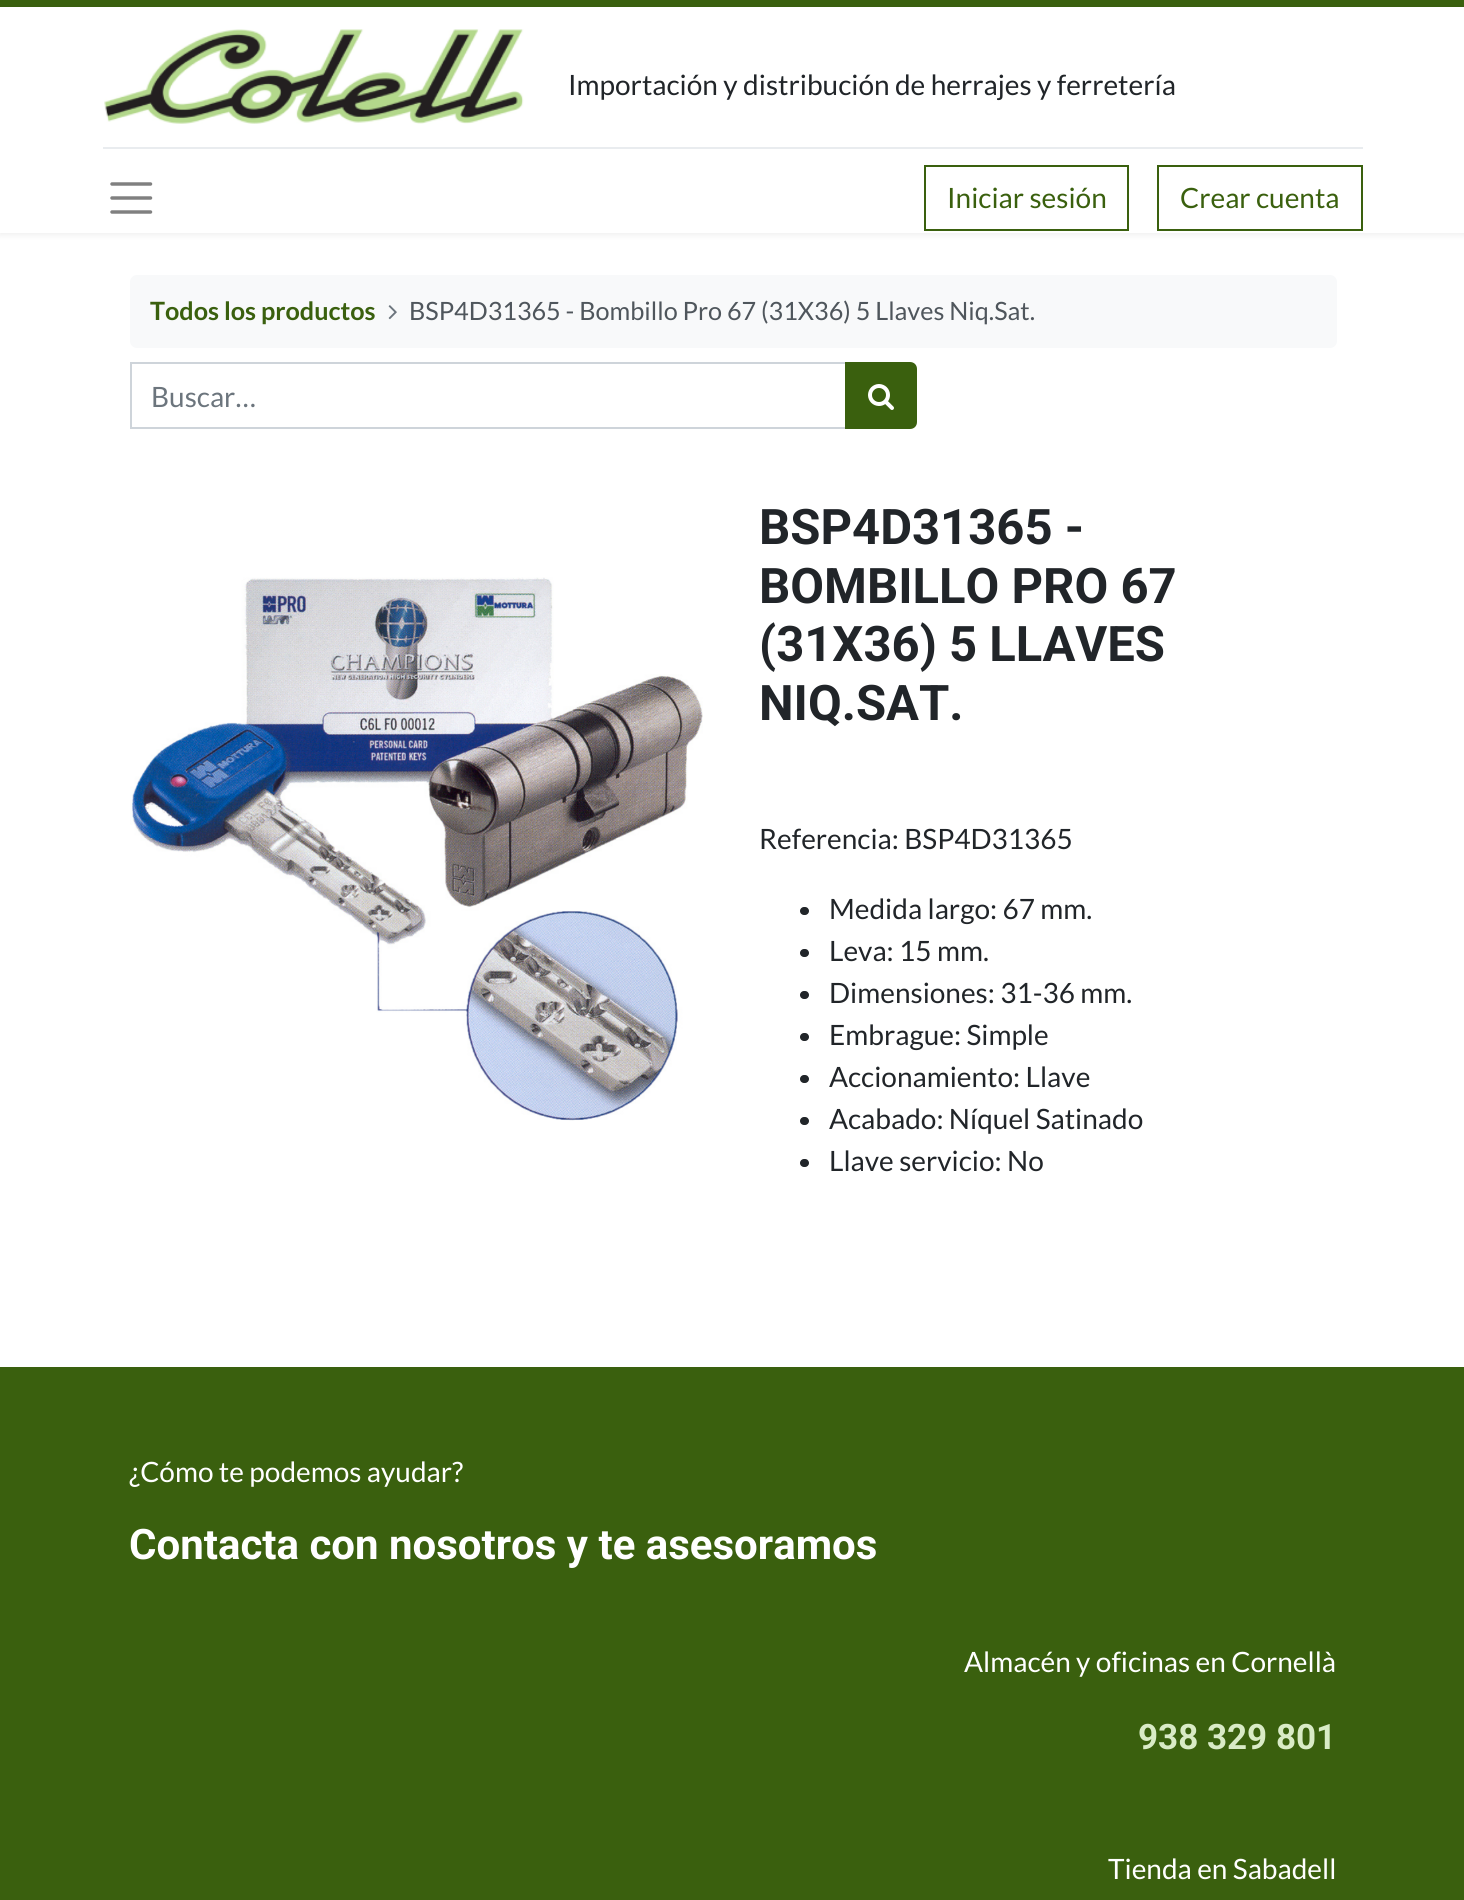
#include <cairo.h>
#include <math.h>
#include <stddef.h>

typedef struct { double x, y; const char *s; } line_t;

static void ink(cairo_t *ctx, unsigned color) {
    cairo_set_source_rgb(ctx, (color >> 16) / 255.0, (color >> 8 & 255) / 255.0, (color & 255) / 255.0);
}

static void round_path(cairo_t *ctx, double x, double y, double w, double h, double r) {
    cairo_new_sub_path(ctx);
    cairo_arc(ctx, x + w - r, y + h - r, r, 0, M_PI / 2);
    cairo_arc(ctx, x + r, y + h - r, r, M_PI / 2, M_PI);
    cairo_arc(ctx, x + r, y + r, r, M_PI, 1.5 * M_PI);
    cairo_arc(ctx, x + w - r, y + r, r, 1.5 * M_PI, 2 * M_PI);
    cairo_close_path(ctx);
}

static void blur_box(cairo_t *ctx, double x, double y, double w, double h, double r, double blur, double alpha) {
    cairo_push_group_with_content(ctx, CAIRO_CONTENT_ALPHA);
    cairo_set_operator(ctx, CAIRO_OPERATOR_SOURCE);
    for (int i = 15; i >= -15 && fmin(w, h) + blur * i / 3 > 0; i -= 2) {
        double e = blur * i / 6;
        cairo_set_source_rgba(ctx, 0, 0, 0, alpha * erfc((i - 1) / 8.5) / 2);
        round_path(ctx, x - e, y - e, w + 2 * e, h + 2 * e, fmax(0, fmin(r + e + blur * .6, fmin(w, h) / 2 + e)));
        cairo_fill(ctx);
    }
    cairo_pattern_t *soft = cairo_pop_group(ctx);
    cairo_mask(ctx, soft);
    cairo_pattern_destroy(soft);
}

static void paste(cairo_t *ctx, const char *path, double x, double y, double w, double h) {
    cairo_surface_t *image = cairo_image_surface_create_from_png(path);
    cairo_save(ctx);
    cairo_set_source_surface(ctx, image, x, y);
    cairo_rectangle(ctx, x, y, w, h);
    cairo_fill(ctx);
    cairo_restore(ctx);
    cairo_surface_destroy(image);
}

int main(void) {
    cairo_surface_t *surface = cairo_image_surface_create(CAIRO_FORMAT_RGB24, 1464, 1900);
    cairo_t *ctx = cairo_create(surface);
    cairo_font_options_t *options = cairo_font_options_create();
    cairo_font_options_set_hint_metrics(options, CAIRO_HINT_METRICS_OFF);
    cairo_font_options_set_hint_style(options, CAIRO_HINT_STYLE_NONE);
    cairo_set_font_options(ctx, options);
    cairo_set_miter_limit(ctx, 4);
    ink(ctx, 0xFFFFFF);
    cairo_paint(ctx);
    ink(ctx, 0x3A600E);
    cairo_rectangle(ctx, 0, 0, 1464, 7);
    cairo_fill(ctx);
    ink(ctx, 0x000000);
    blur_box(ctx, 0, 9, 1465, 226, 0, 3.5, 0.07);
    ink(ctx, 0xFFFFFF);
    cairo_rectangle(ctx, 0, 7, 1464, 226);
    cairo_fill(ctx);
    paste(ctx, "media/1.png", 104, 29, 420, 95);
    cairo_select_font_face(ctx, "Lato", CAIRO_FONT_SLANT_NORMAL, CAIRO_FONT_WEIGHT_NORMAL);
    cairo_set_font_size(ctx, 28);
    ink(ctx, 0x212529);
    cairo_move_to(ctx, 568, 95);
    cairo_show_text(ctx, "Importación y distribución de herrajes y ferretería");
    ink(ctx, 0xE9ECEF);
    cairo_rectangle(ctx, 103, 147, 1260, 2);
    cairo_fill(ctx);
    cairo_new_path(ctx);
    cairo_move_to(ctx, 112, 184);
    cairo_line_to(ctx, 150.5, 184);
    cairo_move_to(ctx, 112, 198);
    cairo_line_to(ctx, 150.5, 198);
    cairo_move_to(ctx, 112, 212);
    cairo_line_to(ctx, 150.5, 212);
    ink(ctx, 0x808080);
    cairo_set_line_width(ctx, 3.5);
    cairo_set_line_cap(ctx, CAIRO_LINE_CAP_ROUND);
    cairo_stroke(ctx);
    cairo_rectangle(ctx, 925, 166, 203, 64);
    ink(ctx, 0x3A600E);
    cairo_set_line_width(ctx, 2);
    cairo_set_line_cap(ctx, CAIRO_LINE_CAP_BUTT);
    cairo_stroke(ctx);
    cairo_move_to(ctx, 947, 208);
    cairo_show_text(ctx, "Iniciar sesión");
    cairo_rectangle(ctx, 1158, 166, 204, 64);
    cairo_stroke(ctx);
    cairo_move_to(ctx, 1180, 208);
    cairo_show_text(ctx, "Crear cuenta");
    ink(ctx, 0xF8F9FA);
    round_path(ctx, 130, 275, 1207, 73, 7);
    cairo_fill(ctx);
    cairo_select_font_face(ctx, "Lato", CAIRO_FONT_SLANT_NORMAL, CAIRO_FONT_WEIGHT_BOLD);
    cairo_set_font_size(ctx, 25.2);
    ink(ctx, 0x3A600E);
    cairo_move_to(ctx, 150, 320);
    cairo_show_text(ctx, "Todos los productos");
    paste(ctx, "media/2.png", 388, 305, 9, 15);
    cairo_select_font_face(ctx, "Lato", CAIRO_FONT_SLANT_NORMAL, CAIRO_FONT_WEIGHT_NORMAL);
    ink(ctx, 0x4F565C);
    cairo_move_to(ctx, 409, 320);
    cairo_show_text(ctx, "BSP4D31365 - Bombillo Pro 67 (31X36) 5 Llaves Niq.Sat.");
    cairo_rectangle(ctx, 131, 363, 715, 65);
    ink(ctx, 0xCED4DA);
    cairo_stroke(ctx);
    cairo_set_font_size(ctx, 28);
    ink(ctx, 0x6C757D);
    cairo_move_to(ctx, 151, 407);
    cairo_show_text(ctx, "Buscar…");
    ink(ctx, 0x3A600E);
    cairo_new_path(ctx);
    cairo_move_to(ctx, 846, 363);
    cairo_line_to(ctx, 910, 363);
    cairo_curve_to(ctx, 913.5, 363, 916, 365.5, 916, 369);
    cairo_line_to(ctx, 916, 422);
    cairo_curve_to(ctx, 916, 425.5, 913.5, 428, 910, 428);
    cairo_line_to(ctx, 846, 428);
    cairo_close_path(ctx);
    cairo_fill_preserve(ctx);
    cairo_stroke(ctx);
    paste(ctx, "media/3.png", 868, 384, 26, 26);
    paste(ctx, "media/4.png", 130, 577, 573, 544);
    cairo_select_font_face(ctx, "Roboto", CAIRO_FONT_SLANT_NORMAL, CAIRO_FONT_WEIGHT_BOLD);
    cairo_set_font_size(ctx, 49);
    ink(ctx, 0x212529);
    {
        static const line_t items[] = {
            {759, 544, "BSP4D31365 -"},
            {759, 603, "BOMBILLO PRO 67"},
            {759, 661, "(31X36) 5 LLAVES"},
            {759, 720, "NIQ.SAT."},
        };
        for (size_t i = 0; i < sizeof items / sizeof *items; i++) {
            cairo_move_to(ctx, items[i].x, items[i].y);
            cairo_show_text(ctx, items[i].s);
        }
    }
    cairo_select_font_face(ctx, "Lato", CAIRO_FONT_SLANT_NORMAL, CAIRO_FONT_WEIGHT_NORMAL);
    cairo_set_font_size(ctx, 28);
    cairo_move_to(ctx, 759, 849);
    cairo_show_text(ctx, "Referencia: BSP4D31365");
    round_path(ctx, 800, 907, 9, 8, 4);
    cairo_fill(ctx);
    cairo_move_to(ctx, 829, 919);
    cairo_show_text(ctx, "Medida largo: 67 mm.");
    round_path(ctx, 800, 949, 9, 8, 4);
    cairo_fill(ctx);
    cairo_move_to(ctx, 829, 961);
    cairo_show_text(ctx, "Leva: 15 mm.");
    round_path(ctx, 800, 991, 9, 8, 4);
    cairo_fill(ctx);
    cairo_move_to(ctx, 829, 1003);
    cairo_show_text(ctx, "Dimensiones: 31-36 mm.");
    round_path(ctx, 800, 1033, 9, 8, 4);
    cairo_fill(ctx);
    cairo_move_to(ctx, 829, 1045);
    cairo_show_text(ctx, "Embrague: Simple");
    round_path(ctx, 800, 1075, 9, 8, 4);
    cairo_fill(ctx);
    cairo_move_to(ctx, 829, 1087);
    cairo_show_text(ctx, "Accionamiento: Llave");
    round_path(ctx, 800, 1117, 9, 8, 4);
    cairo_fill(ctx);
    cairo_move_to(ctx, 829, 1129);
    cairo_show_text(ctx, "Acabado: Níquel Satinado");
    round_path(ctx, 800, 1159, 9, 8, 4);
    cairo_fill(ctx);
    cairo_move_to(ctx, 829, 1171);
    cairo_show_text(ctx, "Llave servicio: No");
    ink(ctx, 0x3A600E);
    cairo_rectangle(ctx, 0, 1367, 1464, 533);
    cairo_fill(ctx);
    ink(ctx, 0xFFFFFF);
    cairo_move_to(ctx, 129, 1482);
    cairo_show_text(ctx, "¿Cómo te podemos ayudar?");
    cairo_select_font_face(ctx, "Roboto", CAIRO_FONT_SLANT_NORMAL, CAIRO_FONT_WEIGHT_BOLD);
    cairo_set_font_size(ctx, 42);
    cairo_move_to(ctx, 129, 1559);
    cairo_show_text(ctx, "Contacta con nosotros y te asesoramos");
    cairo_select_font_face(ctx, "Lato", CAIRO_FONT_SLANT_NORMAL, CAIRO_FONT_WEIGHT_NORMAL);
    cairo_set_font_size(ctx, 28);
    cairo_move_to(ctx, 964, 1672);
    cairo_show_text(ctx, "Almacén y oficinas en Cornellà");
    cairo_select_font_face(ctx, "Roboto", CAIRO_FONT_SLANT_NORMAL, CAIRO_FONT_WEIGHT_BOLD);
    cairo_set_font_size(ctx, 35);
    ink(ctx, 0xD9EBC6);
    cairo_move_to(ctx, 1138, 1749);
    cairo_show_text(ctx, "938 329 801");
    cairo_select_font_face(ctx, "Lato", CAIRO_FONT_SLANT_NORMAL, CAIRO_FONT_WEIGHT_NORMAL);
    cairo_set_font_size(ctx, 28);
    ink(ctx, 0xFFFFFF);
    cairo_move_to(ctx, 1108, 1879);
    cairo_show_text(ctx, "Tienda en Sabadell");
    cairo_surface_write_to_png(surface, "image.png");
    cairo_font_options_destroy(options);
    cairo_destroy(ctx);
    cairo_surface_destroy(surface);
    return 0;
}
